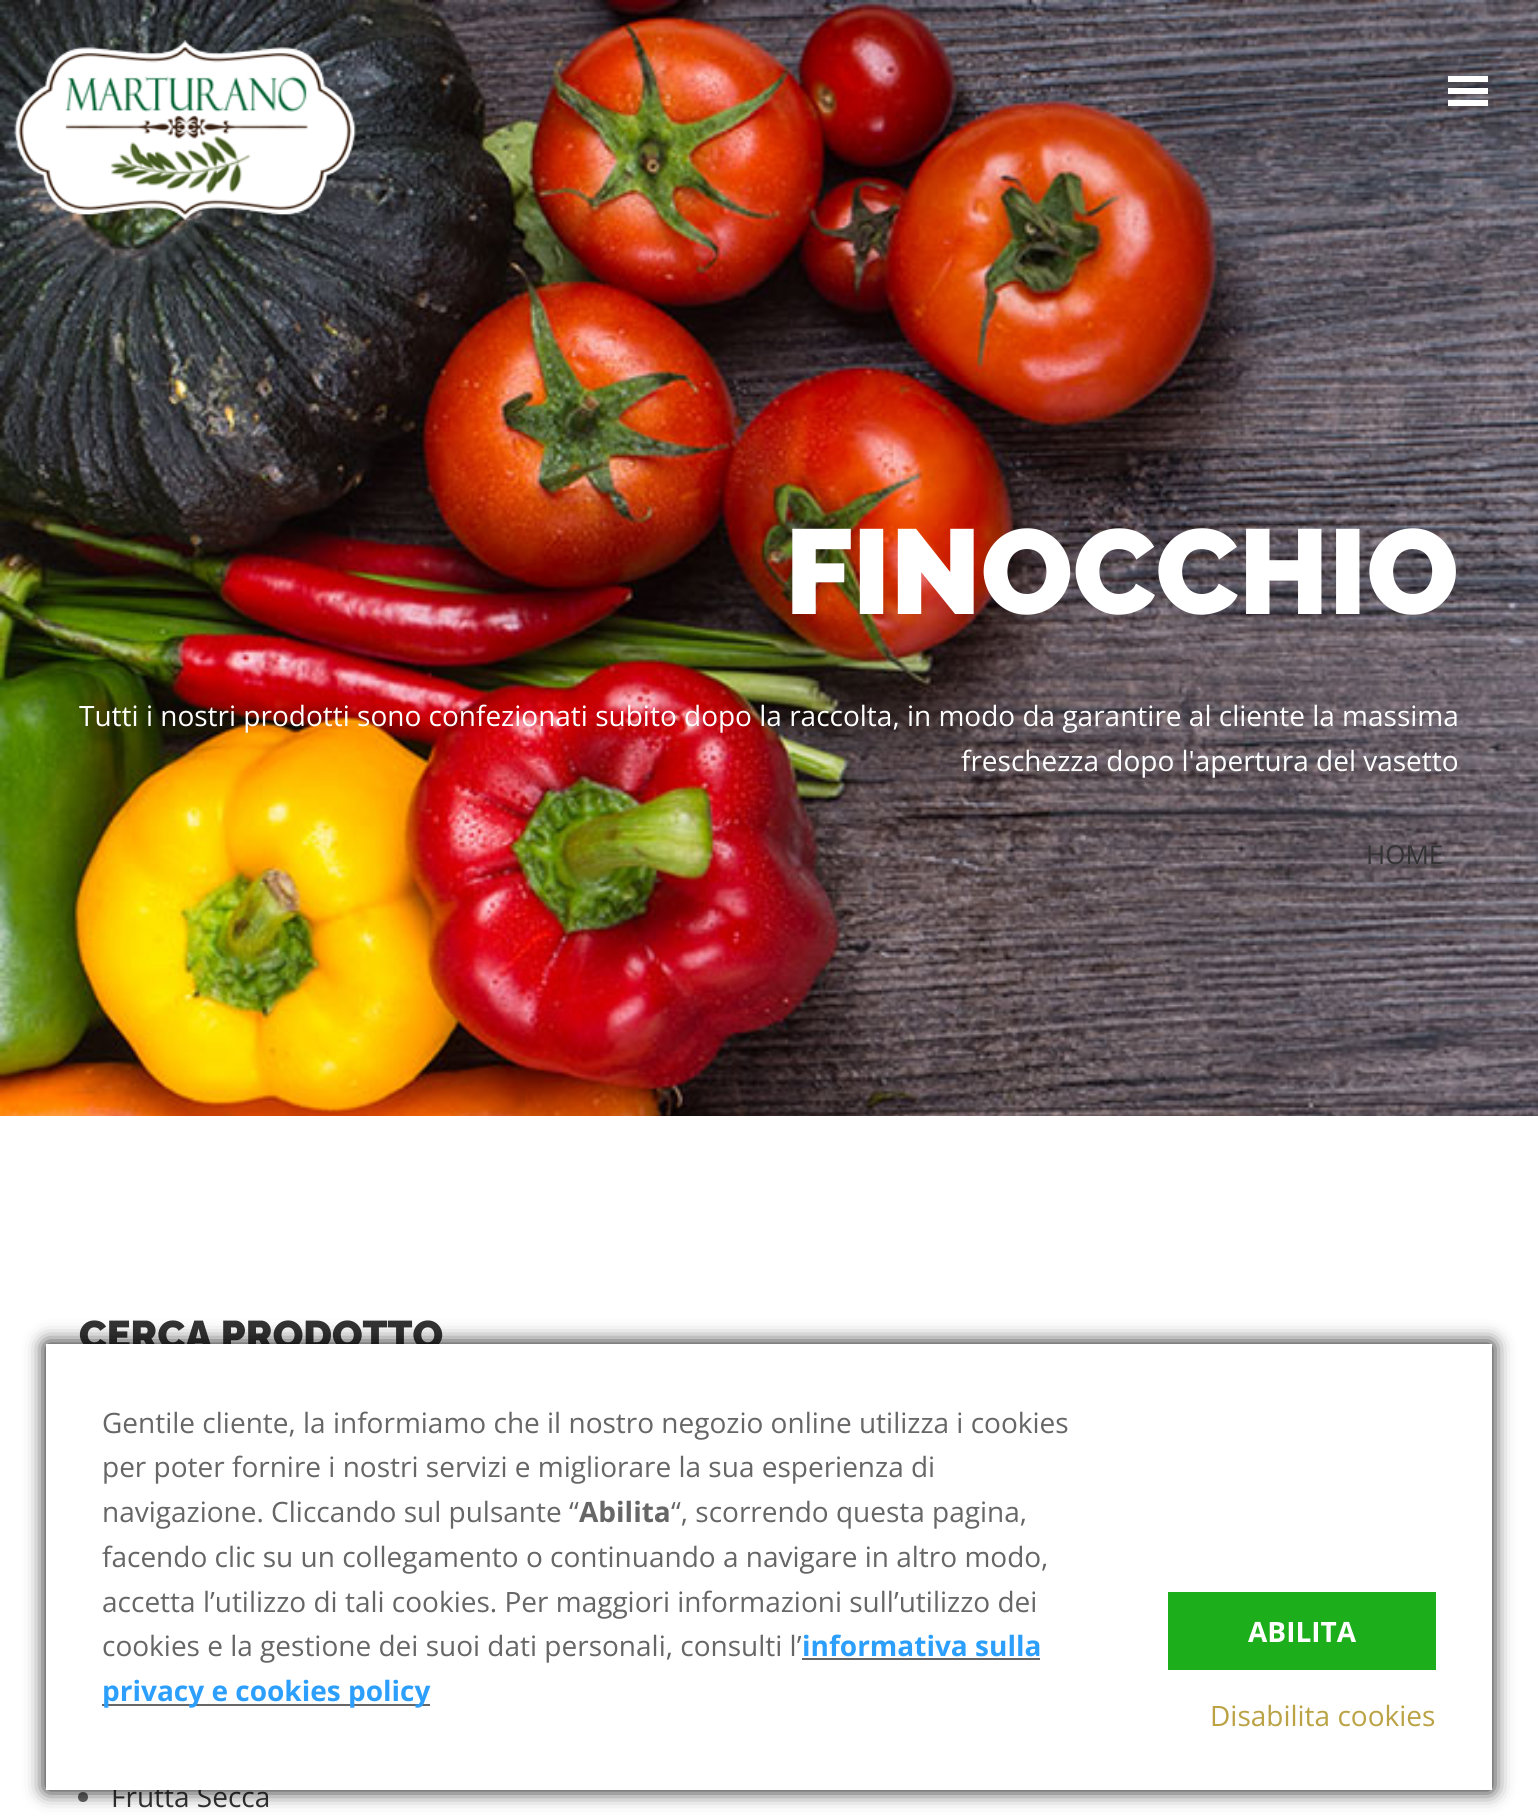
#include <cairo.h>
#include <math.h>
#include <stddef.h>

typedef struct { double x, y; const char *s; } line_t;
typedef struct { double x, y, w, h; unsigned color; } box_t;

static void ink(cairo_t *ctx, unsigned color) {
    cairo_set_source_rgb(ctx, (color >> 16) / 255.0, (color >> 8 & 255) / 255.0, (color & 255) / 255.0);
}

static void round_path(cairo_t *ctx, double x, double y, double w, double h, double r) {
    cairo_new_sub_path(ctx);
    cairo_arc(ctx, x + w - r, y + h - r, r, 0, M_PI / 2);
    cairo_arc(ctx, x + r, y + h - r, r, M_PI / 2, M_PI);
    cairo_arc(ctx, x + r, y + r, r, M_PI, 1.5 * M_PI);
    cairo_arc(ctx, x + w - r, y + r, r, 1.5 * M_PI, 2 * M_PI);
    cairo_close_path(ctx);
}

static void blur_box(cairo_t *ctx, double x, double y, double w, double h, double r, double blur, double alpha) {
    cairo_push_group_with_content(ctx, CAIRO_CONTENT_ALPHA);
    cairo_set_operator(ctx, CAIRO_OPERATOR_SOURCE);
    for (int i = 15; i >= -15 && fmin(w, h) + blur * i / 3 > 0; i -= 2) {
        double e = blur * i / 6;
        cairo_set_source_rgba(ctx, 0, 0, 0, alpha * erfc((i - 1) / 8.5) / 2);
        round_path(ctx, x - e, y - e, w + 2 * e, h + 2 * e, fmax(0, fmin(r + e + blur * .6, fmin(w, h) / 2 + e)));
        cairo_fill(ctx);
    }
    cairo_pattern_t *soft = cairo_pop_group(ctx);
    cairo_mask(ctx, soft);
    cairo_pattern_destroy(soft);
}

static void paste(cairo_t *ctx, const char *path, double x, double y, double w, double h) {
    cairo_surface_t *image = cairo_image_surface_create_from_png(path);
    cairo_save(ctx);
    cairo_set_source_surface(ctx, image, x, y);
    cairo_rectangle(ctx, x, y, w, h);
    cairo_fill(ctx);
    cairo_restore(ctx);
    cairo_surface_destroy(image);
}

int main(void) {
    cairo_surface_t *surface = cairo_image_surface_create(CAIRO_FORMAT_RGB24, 1538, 1817);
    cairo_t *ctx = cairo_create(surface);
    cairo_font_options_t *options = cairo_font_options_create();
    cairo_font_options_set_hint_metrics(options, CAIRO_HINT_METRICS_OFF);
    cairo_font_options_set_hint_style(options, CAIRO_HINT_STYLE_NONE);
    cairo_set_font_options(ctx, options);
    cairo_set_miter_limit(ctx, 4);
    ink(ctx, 0xFFFFFF);
    cairo_paint(ctx);
    paste(ctx, "media/2.png", 0, 0, 1538, 1116);
    paste(ctx, "media/1.png", 14, 40, 342, 180);
    {
        static const box_t items[] = {
            {1448, 88, 40, 6, 0xFFFFFF},
            {1448, 76, 40, 6, 0xFFFFFF},
            {1448, 100, 40, 6, 0xFFFFFF},
        };
        for (size_t i = 0; i < sizeof items / sizeof *items; i++) {
            ink(ctx, items[i].color);
            cairo_rectangle(ctx, items[i].x, items[i].y, items[i].w, items[i].h);
            cairo_fill(ctx);
        }
    }
    cairo_select_font_face(ctx, "Raleway Black", CAIRO_FONT_SLANT_NORMAL, CAIRO_FONT_WEIGHT_NORMAL);
    cairo_set_font_size(ctx, 120);
    cairo_move_to(ctx, 785, 614);
    cairo_show_text(ctx, "FINOCCHIO");
    cairo_select_font_face(ctx, "Open Sans", CAIRO_FONT_SLANT_NORMAL, CAIRO_FONT_WEIGHT_NORMAL);
    cairo_set_font_size(ctx, 28);
    cairo_move_to(ctx, 79, 726);
    cairo_show_text(ctx, "Tutti i nostri prodotti sono confezionati subito dopo la raccolta, in modo da garantire al cliente la massima");
    cairo_move_to(ctx, 961, 771);
    cairo_show_text(ctx, "freschezza dopo l'apertura del vasetto");
    cairo_set_font_size(ctx, 26);
    ink(ctx, 0x333333);
    cairo_move_to(ctx, 1366, 864);
    cairo_show_text(ctx, "HOME");
    cairo_select_font_face(ctx, "Raleway Black", CAIRO_FONT_SLANT_NORMAL, CAIRO_FONT_WEIGHT_NORMAL);
    cairo_set_font_size(ctx, 40);
    cairo_move_to(ctx, 79, 1349);
    cairo_show_text(ctx, "CERCA PRODOTTO");
    ink(ctx, 0x666666);
    cairo_new_path(ctx);
    cairo_arc(ctx, 83, 1797, 5, 0, 2 * M_PI);
    cairo_fill(ctx);
    cairo_select_font_face(ctx, "Open Sans", CAIRO_FONT_SLANT_NORMAL, CAIRO_FONT_WEIGHT_NORMAL);
    cairo_set_font_size(ctx, 28);
    ink(ctx, 0x333333);
    cairo_move_to(ctx, 111, 1807);
    cairo_show_text(ctx, "Frutta Secca");
    ink(ctx, 0x000000);
    blur_box(ctx, 46, 1344, 1446, 446, 0, 10, 1);
    ink(ctx, 0xFFFFFF);
    cairo_rectangle(ctx, 46, 1344, 1446, 446);
    cairo_fill(ctx);
    ink(ctx, 0x666666);
    {
        static const line_t items[] = {
            {102, 1433, "Gentile cliente, la informiamo che il nostro negozio online utilizza i cookies"},
            {102, 1477, "per poter fornire i nostri servizi e migliorare la sua esperienza di"},
            {102, 1522, "navigazione. Cliccando sul pulsante “"},
        };
        for (size_t i = 0; i < sizeof items / sizeof *items; i++) {
            cairo_move_to(ctx, items[i].x, items[i].y);
            cairo_show_text(ctx, items[i].s);
        }
    }
    cairo_select_font_face(ctx, "Open Sans", CAIRO_FONT_SLANT_NORMAL, CAIRO_FONT_WEIGHT_BOLD);
    cairo_move_to(ctx, 579, 1522);
    cairo_show_text(ctx, "Abilita");
    cairo_select_font_face(ctx, "Open Sans", CAIRO_FONT_SLANT_NORMAL, CAIRO_FONT_WEIGHT_NORMAL);
    {
        static const line_t items[] = {
            {671, 1522, "“, scorrendo questa pagina,"},
            {102, 1567, "facendo clic su un collegamento o continuando a navigare in altro modo,"},
            {102, 1612, "accetta l’utilizzo di tali cookies. Per maggiori informazioni sull’utilizzo dei"},
            {102, 1656, "cookies e la gestione dei suoi dati personali, consulti l’"},
        };
        for (size_t i = 0; i < sizeof items / sizeof *items; i++) {
            cairo_move_to(ctx, items[i].x, items[i].y);
            cairo_show_text(ctx, items[i].s);
        }
    }
    cairo_select_font_face(ctx, "Open Sans", CAIRO_FONT_SLANT_NORMAL, CAIRO_FONT_WEIGHT_BOLD);
    ink(ctx, 0x2C9FFD);
    cairo_move_to(ctx, 802, 1656);
    cairo_show_text(ctx, "informativa sulla");
    ink(ctx, 0x666666);
    cairo_rectangle(ctx, 802, 1658, 238, 2);
    cairo_fill(ctx);
    cairo_rectangle(ctx, 102, 1704, 328, 2);
    cairo_fill(ctx);
    ink(ctx, 0x2C9FFD);
    cairo_move_to(ctx, 102, 1701);
    cairo_show_text(ctx, "privacy e cookies policy");
    ink(ctx, 0x1DAE1C);
    cairo_rectangle(ctx, 1168, 1592, 268, 78);
    cairo_fill(ctx);
    ink(ctx, 0xFFFFFF);
    cairo_move_to(ctx, 1248, 1642);
    cairo_show_text(ctx, "ABILITA");
    cairo_select_font_face(ctx, "Open Sans", CAIRO_FONT_SLANT_NORMAL, CAIRO_FONT_WEIGHT_NORMAL);
    ink(ctx, 0xBAA245);
    cairo_move_to(ctx, 1210, 1726);
    cairo_show_text(ctx, "Disabilita cookies");
    cairo_surface_write_to_png(surface, "image.png");
    cairo_font_options_destroy(options);
    cairo_destroy(ctx);
    cairo_surface_destroy(surface);
    return 0;
}
